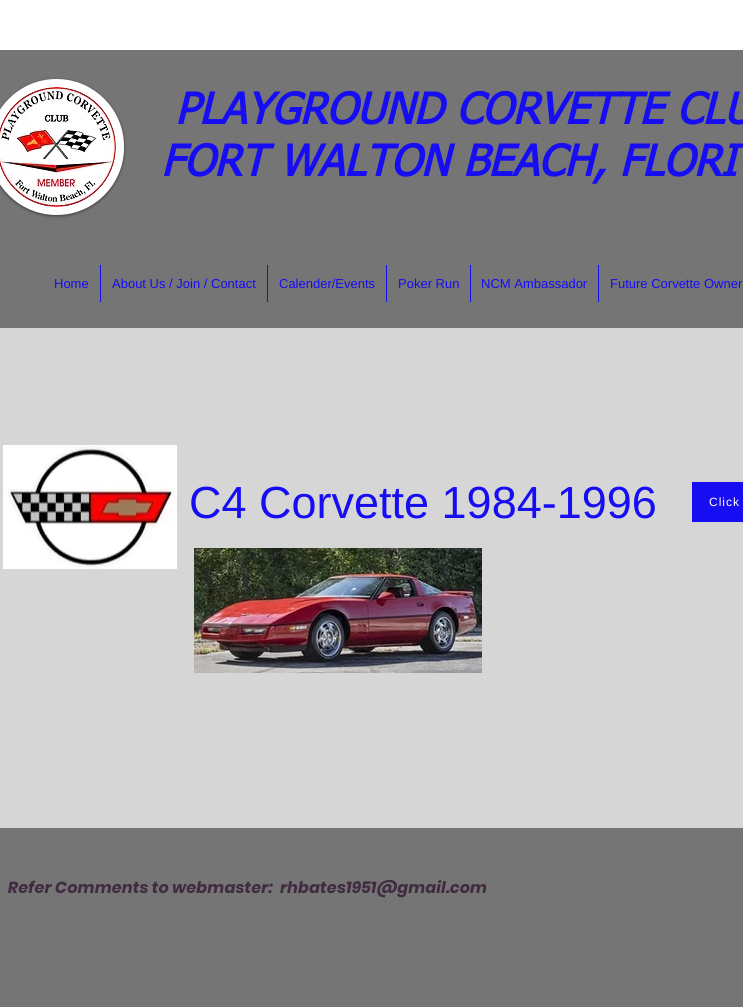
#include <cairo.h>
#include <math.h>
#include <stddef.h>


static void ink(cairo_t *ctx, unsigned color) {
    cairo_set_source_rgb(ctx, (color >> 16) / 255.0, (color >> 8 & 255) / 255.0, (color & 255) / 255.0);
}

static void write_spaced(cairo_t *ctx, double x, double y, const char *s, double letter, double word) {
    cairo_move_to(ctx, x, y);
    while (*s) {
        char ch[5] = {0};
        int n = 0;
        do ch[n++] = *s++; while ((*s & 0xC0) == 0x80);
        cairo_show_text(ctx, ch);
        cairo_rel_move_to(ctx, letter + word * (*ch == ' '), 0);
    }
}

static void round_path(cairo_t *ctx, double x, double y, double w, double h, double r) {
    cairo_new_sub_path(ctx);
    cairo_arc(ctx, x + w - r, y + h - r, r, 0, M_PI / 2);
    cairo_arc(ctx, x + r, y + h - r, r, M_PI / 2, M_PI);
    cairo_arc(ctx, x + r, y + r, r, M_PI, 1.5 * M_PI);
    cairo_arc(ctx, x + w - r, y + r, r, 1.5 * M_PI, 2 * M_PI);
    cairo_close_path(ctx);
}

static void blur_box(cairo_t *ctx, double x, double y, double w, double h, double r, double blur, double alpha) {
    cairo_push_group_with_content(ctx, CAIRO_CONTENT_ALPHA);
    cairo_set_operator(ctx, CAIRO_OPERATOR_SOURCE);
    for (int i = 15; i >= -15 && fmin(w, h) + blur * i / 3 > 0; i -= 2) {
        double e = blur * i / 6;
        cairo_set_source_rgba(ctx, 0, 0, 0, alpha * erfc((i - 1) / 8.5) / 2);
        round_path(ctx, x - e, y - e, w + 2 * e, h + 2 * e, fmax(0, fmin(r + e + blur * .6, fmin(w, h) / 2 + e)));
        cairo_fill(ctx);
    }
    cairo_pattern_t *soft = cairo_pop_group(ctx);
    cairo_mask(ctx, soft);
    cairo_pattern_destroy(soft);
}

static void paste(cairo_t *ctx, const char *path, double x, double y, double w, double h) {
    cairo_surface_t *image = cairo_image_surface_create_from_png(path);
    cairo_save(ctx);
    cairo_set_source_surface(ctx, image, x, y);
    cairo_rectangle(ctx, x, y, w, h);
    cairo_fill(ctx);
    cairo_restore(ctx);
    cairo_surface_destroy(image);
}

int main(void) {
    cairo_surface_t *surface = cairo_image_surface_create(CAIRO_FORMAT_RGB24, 743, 1007);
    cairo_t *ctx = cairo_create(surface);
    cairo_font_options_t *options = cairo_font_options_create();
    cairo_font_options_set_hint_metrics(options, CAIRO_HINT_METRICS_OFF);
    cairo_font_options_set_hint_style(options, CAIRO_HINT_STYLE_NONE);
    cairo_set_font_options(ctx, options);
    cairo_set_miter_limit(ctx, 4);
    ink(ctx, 0x757575);
    cairo_paint(ctx);
    ink(ctx, 0xFFFFFF);
    cairo_rectangle(ctx, 0, 0, 743, 50);
    cairo_fill(ctx);
    ink(ctx, 0x000000);
    blur_box(ctx, -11, 80, 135, 136, 67.5, 1.5, 0.5);
    ink(ctx, 0xFFFFFF);
    round_path(ctx, -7, 83, 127, 128, 63.5);
    cairo_fill_preserve(ctx);
    cairo_set_line_width(ctx, 8);
    cairo_stroke(ctx);
    paste(ctx, "media/1.png", 0, 87, 116, 120);
    cairo_select_font_face(ctx, "tahoma", CAIRO_FONT_SLANT_ITALIC, CAIRO_FONT_WEIGHT_BOLD);
    cairo_set_font_size(ctx, 43);
    ink(ctx, 0x170DF2);
    cairo_move_to(ctx, 175, 124);
    cairo_show_text(ctx, "PLAYGROUND CORVETTE CLU");
    cairo_move_to(ctx, 161, 176);
    cairo_show_text(ctx, "FORT WALTON BEACH, FLORI");
    cairo_select_font_face(ctx, "Liberation Sans", CAIRO_FONT_SLANT_NORMAL, CAIRO_FONT_WEIGHT_NORMAL);
    cairo_set_font_size(ctx, 13);
    cairo_move_to(ctx, 54, 288);
    cairo_show_text(ctx, "Home");
    cairo_rectangle(ctx, 100, 265, 1, 37);
    cairo_fill(ctx);
    cairo_move_to(ctx, 112, 288);
    cairo_show_text(ctx, "About Us / Join / Contact");
    cairo_rectangle(ctx, 267, 265, 1, 37);
    cairo_fill(ctx);
    cairo_move_to(ctx, 279, 288);
    cairo_show_text(ctx, "Calender/Events");
    cairo_rectangle(ctx, 386, 265, 1, 37);
    cairo_fill(ctx);
    cairo_move_to(ctx, 398, 288);
    cairo_show_text(ctx, "Poker Run");
    cairo_rectangle(ctx, 470, 265, 1, 37);
    cairo_fill(ctx);
    cairo_move_to(ctx, 481, 288);
    cairo_show_text(ctx, "NCM Ambassador");
    cairo_rectangle(ctx, 598, 265, 1, 37);
    cairo_fill(ctx);
    cairo_move_to(ctx, 610, 288);
    cairo_show_text(ctx, "Future Corvette Owner");
    ink(ctx, 0xD6D6D6);
    cairo_rectangle(ctx, 0, 328, 743, 500);
    cairo_fill(ctx);
    paste(ctx, "media/2.png", 3, 445, 174, 124);
    cairo_set_font_size(ctx, 45);
    ink(ctx, 0x170DF2);
    cairo_move_to(ctx, 189, 518);
    cairo_show_text(ctx, "C4 Corvette 1984-1996");
    cairo_rectangle(ctx, 692, 482, 51, 40);
    cairo_fill(ctx);
    cairo_set_font_size(ctx, 12);
    ink(ctx, 0xFFFFFF);
    write_spaced(ctx, 709, 506, "Click", 1, 0);
    paste(ctx, "media/3.png", 194, 548, 288, 125);
    cairo_select_font_face(ctx, "Poppins", CAIRO_FONT_SLANT_ITALIC, CAIRO_FONT_WEIGHT_BOLD);
    cairo_set_font_size(ctx, 16);
    ink(ctx, 0x402B40);
    write_spaced(ctx, 8, 893, "Refer Comments to webmaster:", 0.15, 0);
    write_spaced(ctx, 280, 893, "rhbates1951@gmail.com", 0.15, 0);
    cairo_surface_write_to_png(surface, "image.png");
    cairo_font_options_destroy(options);
    cairo_destroy(ctx);
    cairo_surface_destroy(surface);
    return 0;
}
